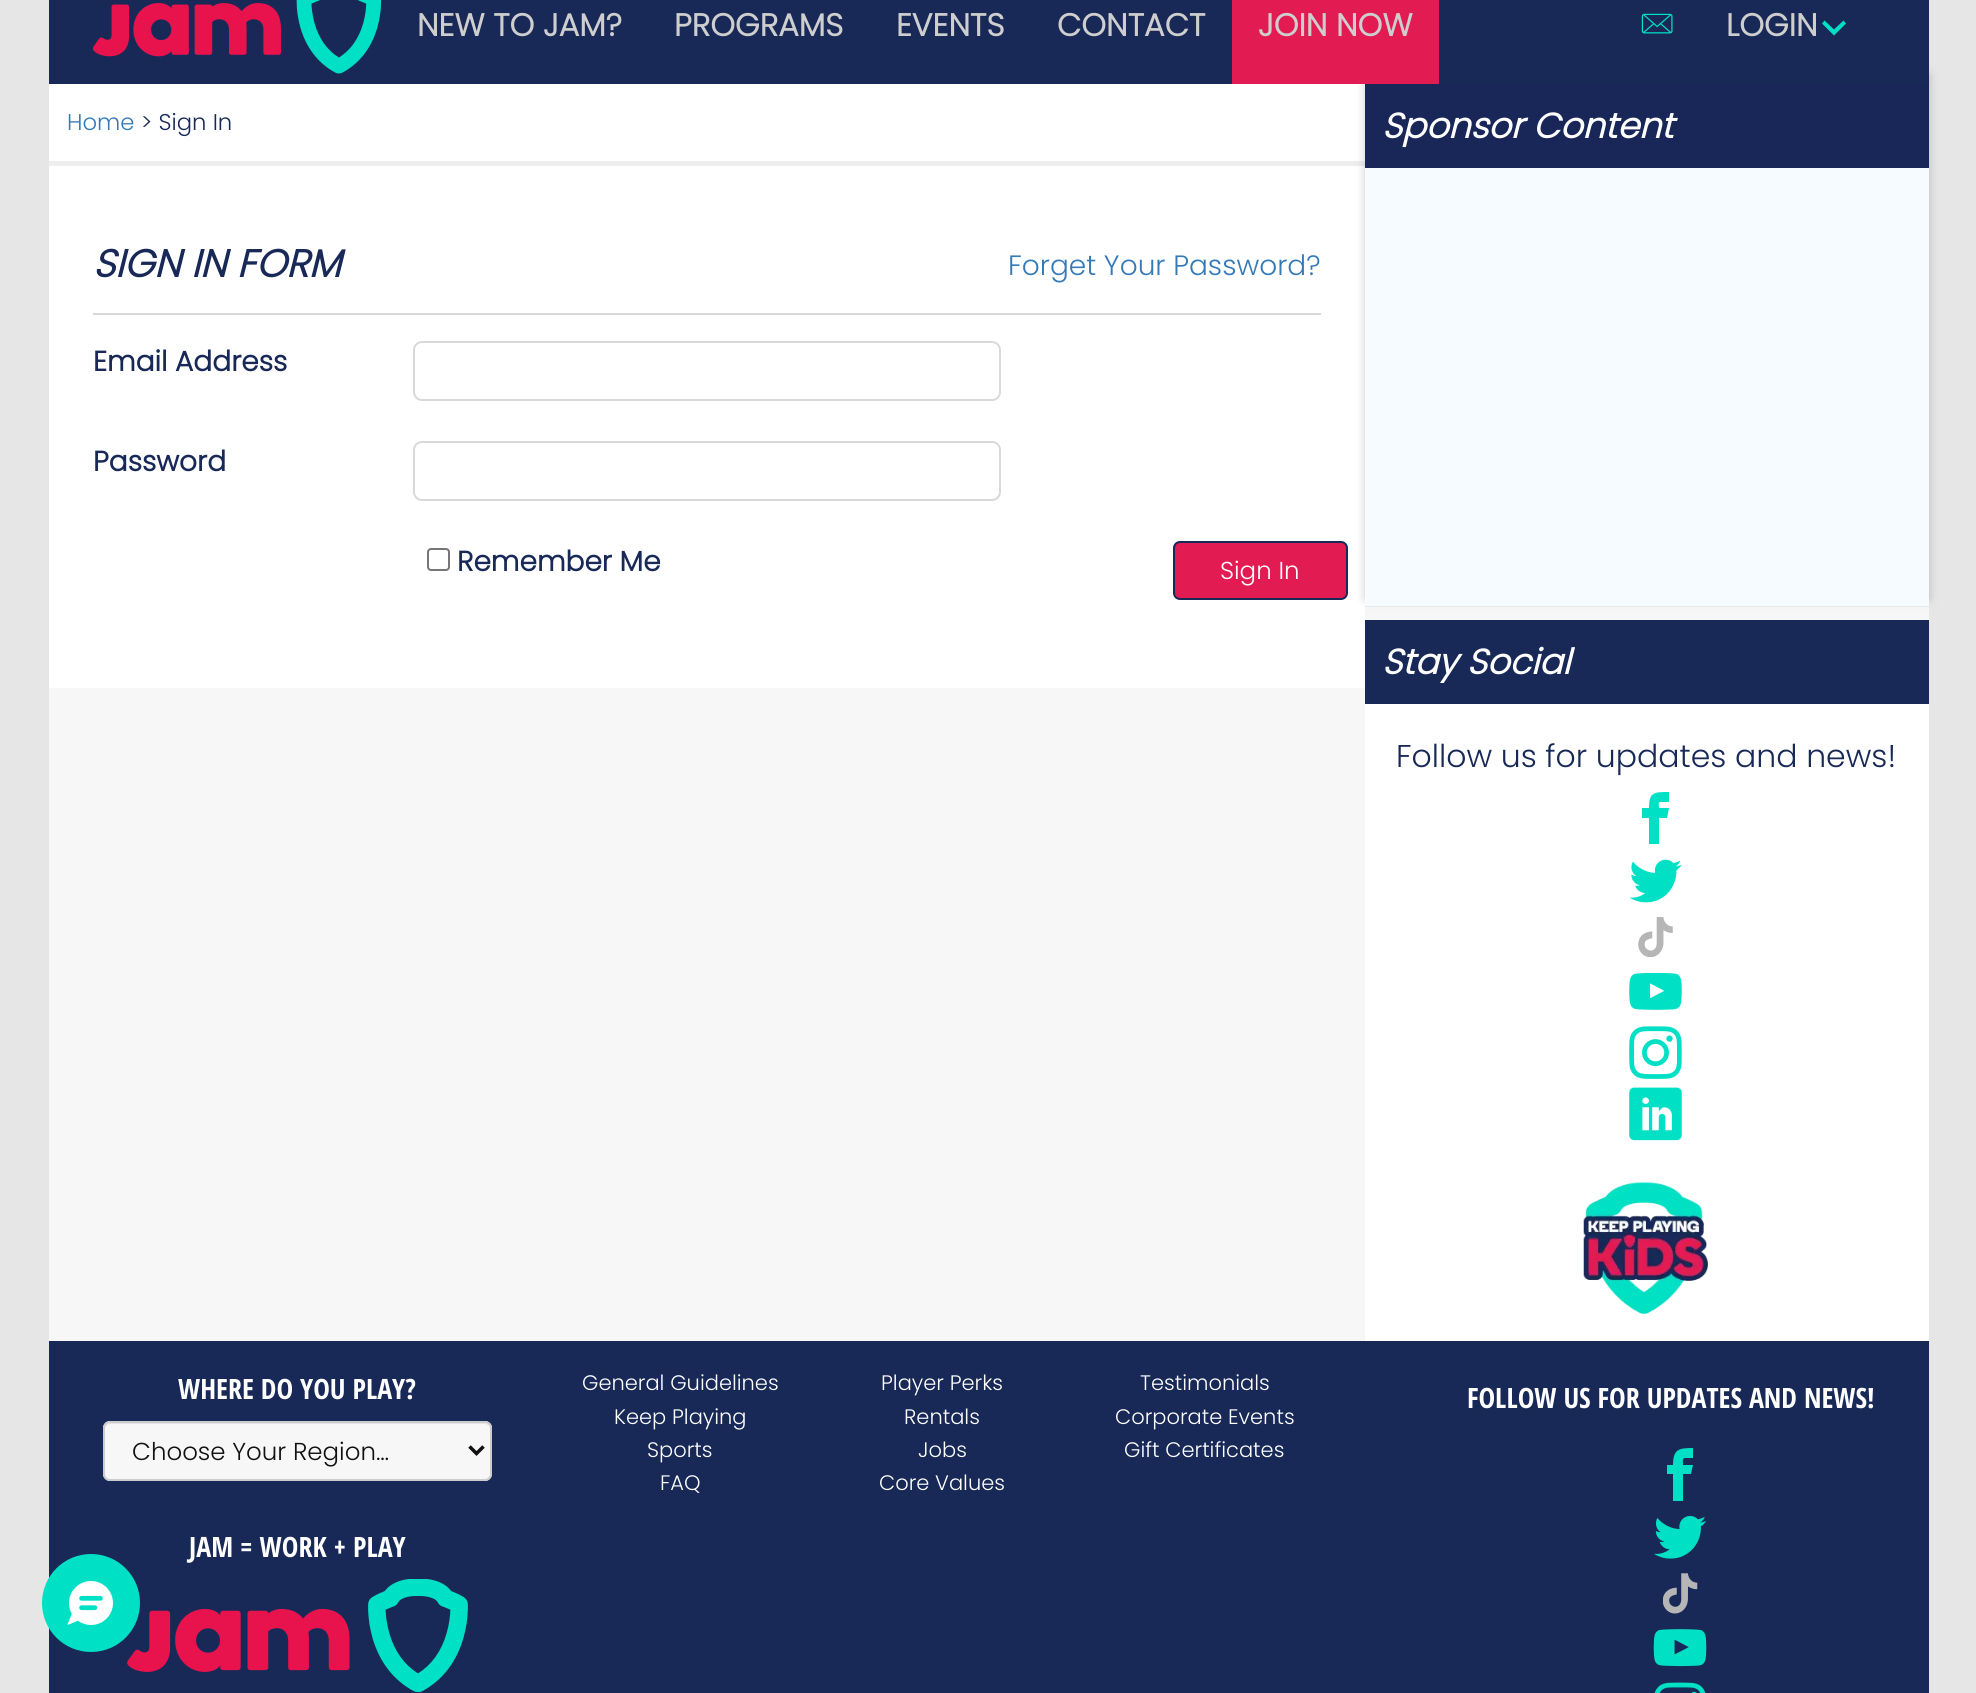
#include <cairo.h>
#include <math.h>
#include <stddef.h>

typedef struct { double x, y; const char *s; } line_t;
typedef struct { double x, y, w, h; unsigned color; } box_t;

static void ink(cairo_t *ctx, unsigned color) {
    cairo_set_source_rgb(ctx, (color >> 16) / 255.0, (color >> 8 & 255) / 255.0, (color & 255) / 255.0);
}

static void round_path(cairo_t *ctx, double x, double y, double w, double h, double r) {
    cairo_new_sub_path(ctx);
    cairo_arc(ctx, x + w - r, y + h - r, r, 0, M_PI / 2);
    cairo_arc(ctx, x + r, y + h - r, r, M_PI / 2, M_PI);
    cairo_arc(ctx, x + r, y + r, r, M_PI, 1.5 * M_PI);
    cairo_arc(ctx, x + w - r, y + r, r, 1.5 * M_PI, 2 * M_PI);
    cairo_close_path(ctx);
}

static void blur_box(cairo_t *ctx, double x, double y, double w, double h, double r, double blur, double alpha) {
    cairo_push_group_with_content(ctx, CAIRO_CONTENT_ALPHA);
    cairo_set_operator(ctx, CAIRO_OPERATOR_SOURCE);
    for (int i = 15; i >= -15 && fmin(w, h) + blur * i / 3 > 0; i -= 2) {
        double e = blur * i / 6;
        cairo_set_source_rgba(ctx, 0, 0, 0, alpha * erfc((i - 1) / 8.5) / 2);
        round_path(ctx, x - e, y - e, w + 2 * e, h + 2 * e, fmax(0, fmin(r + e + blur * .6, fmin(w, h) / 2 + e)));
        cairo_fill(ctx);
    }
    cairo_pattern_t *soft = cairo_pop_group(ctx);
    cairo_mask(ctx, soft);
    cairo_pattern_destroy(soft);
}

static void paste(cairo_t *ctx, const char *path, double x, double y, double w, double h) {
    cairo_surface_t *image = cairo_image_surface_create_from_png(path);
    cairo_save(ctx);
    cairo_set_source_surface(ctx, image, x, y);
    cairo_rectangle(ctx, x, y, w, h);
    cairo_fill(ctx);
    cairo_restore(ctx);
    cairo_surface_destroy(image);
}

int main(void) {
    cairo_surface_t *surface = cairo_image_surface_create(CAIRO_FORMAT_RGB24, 1976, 1693);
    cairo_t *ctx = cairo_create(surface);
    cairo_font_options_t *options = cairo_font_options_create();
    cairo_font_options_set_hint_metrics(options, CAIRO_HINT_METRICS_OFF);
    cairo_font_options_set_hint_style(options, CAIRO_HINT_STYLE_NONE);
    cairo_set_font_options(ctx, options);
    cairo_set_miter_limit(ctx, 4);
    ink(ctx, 0xE6E6E6);
    cairo_paint(ctx);
    {
        static const box_t items[] = {
            {49, 607, 1880, 734, 0xF7F7F7},
            {49, 84, 1316, 77, 0xFFFFFF},
            {49, 166, 1316, 522, 0xFFFFFF},
            {49, 161, 1316, 5, 0xEEEEEE},
        };
        for (size_t i = 0; i < sizeof items / sizeof *items; i++) {
            ink(ctx, items[i].color);
            cairo_rectangle(ctx, items[i].x, items[i].y, items[i].w, items[i].h);
            cairo_fill(ctx);
        }
    }
    ink(ctx, 0x000000);
    blur_box(ctx, 1365, 75, 564, 524, 0, 5, 0.2);
    ink(ctx, 0x182958);
    cairo_rectangle(ctx, 49, 0, 1880, 84);
    cairo_fill(ctx);
    paste(ctx, "media/1.png", 93, 0, 289, 74);
    cairo_select_font_face(ctx, "Poppins", CAIRO_FONT_SLANT_NORMAL, CAIRO_FONT_WEIGHT_BOLD);
    cairo_set_font_size(ctx, 31.5);
    ink(ctx, 0xCECECE);
    {
        static const line_t items[] = {
            {417, 36, "NEW TO JAM?"},
            {674, 36, "PROGRAMS"},
            {896, 36, "EVENTS"},
            {1057, 36, "CONTACT"},
        };
        for (size_t i = 0; i < sizeof items / sizeof *items; i++) {
            cairo_move_to(ctx, items[i].x, items[i].y);
            cairo_show_text(ctx, items[i].s);
        }
    }
    ink(ctx, 0xE21B52);
    cairo_rectangle(ctx, 1232, 0, 207, 84);
    cairo_fill(ctx);
    ink(ctx, 0xCECECE);
    cairo_move_to(ctx, 1258, 36);
    cairo_show_text(ctx, "JOIN NOW");
    paste(ctx, "media/2.png", 1641, 13, 32, 21);
    cairo_move_to(ctx, 1726, 36);
    cairo_show_text(ctx, "LOGIN");
    ink(ctx, 0x00E0C5);
    cairo_new_path(ctx);
    cairo_move_to(ctx, 1824.5, 20.5);
    cairo_line_to(ctx, 1834, 29.5);
    cairo_line_to(ctx, 1843.5, 20.5);
    cairo_line_to(ctx, 1846, 23.5);
    cairo_line_to(ctx, 1834, 35.5);
    cairo_line_to(ctx, 1822, 23.5);
    cairo_close_path(ctx);
    cairo_fill(ctx);
    cairo_select_font_face(ctx, "Poppins Light", CAIRO_FONT_SLANT_NORMAL, CAIRO_FONT_WEIGHT_NORMAL);
    cairo_set_font_size(ctx, 22.75);
    ink(ctx, 0x337AB7);
    cairo_move_to(ctx, 67, 130);
    cairo_show_text(ctx, "Home");
    ink(ctx, 0x182958);
    cairo_move_to(ctx, 141, 130);
    cairo_show_text(ctx, "> Sign In");
    cairo_select_font_face(ctx, "Poppins", CAIRO_FONT_SLANT_ITALIC, CAIRO_FONT_WEIGHT_BOLD);
    cairo_set_font_size(ctx, 38.5);
    cairo_move_to(ctx, 93, 277);
    cairo_show_text(ctx, "SIGN IN FORM");
    cairo_select_font_face(ctx, "Poppins Light", CAIRO_FONT_SLANT_NORMAL, CAIRO_FONT_WEIGHT_NORMAL);
    cairo_set_font_size(ctx, 28);
    ink(ctx, 0x337AB7);
    cairo_move_to(ctx, 1008, 275);
    cairo_show_text(ctx, "Forget Your Password?");
    ink(ctx, 0xD9D9D9);
    cairo_rectangle(ctx, 93, 313, 1228, 2);
    cairo_fill(ctx);
    cairo_select_font_face(ctx, "Poppins", CAIRO_FONT_SLANT_NORMAL, CAIRO_FONT_WEIGHT_BOLD);
    ink(ctx, 0x182958);
    cairo_move_to(ctx, 93, 371);
    cairo_show_text(ctx, "Email Address");
    round_path(ctx, 414, 342, 586, 58, 8);
    ink(ctx, 0xD9D9D9);
    cairo_stroke(ctx);
    ink(ctx, 0x182958);
    cairo_move_to(ctx, 93, 471);
    cairo_show_text(ctx, "Password");
    round_path(ctx, 414, 442, 586, 58, 8);
    ink(ctx, 0xD9D9D9);
    cairo_stroke(ctx);
    round_path(ctx, 428, 549, 21, 21, 3);
    ink(ctx, 0x767676);
    cairo_stroke(ctx);
    ink(ctx, 0x182958);
    cairo_move_to(ctx, 457, 571);
    cairo_show_text(ctx, "Remember Me");
    ink(ctx, 0xE21B52);
    round_path(ctx, 1174, 542, 173, 57, 6);
    cairo_fill_preserve(ctx);
    ink(ctx, 0x182958);
    cairo_stroke(ctx);
    cairo_select_font_face(ctx, "Poppins Light", CAIRO_FONT_SLANT_NORMAL, CAIRO_FONT_WEIGHT_NORMAL);
    cairo_set_font_size(ctx, 24.5);
    ink(ctx, 0xFFFFFF);
    cairo_move_to(ctx, 1220, 579);
    cairo_show_text(ctx, "Sign In");
    ink(ctx, 0x182658);
    cairo_rectangle(ctx, 1365, 84, 564, 84);
    cairo_fill(ctx);
    cairo_select_font_face(ctx, "Poppins", CAIRO_FONT_SLANT_ITALIC, CAIRO_FONT_WEIGHT_BOLD);
    cairo_set_font_size(ctx, 35);
    ink(ctx, 0xFFFFFF);
    cairo_move_to(ctx, 1382, 138);
    cairo_show_text(ctx, "Sponsor Content");
    {
        static const box_t items[] = {
            {1365, 168, 564, 438, 0xF6FBFF},
            {1365, 606, 564, 1, 0xE9E9E9},
            {1365, 620, 564, 84, 0x182958},
        };
        for (size_t i = 0; i < sizeof items / sizeof *items; i++) {
            ink(ctx, items[i].color);
            cairo_rectangle(ctx, items[i].x, items[i].y, items[i].w, items[i].h);
            cairo_fill(ctx);
        }
    }
    ink(ctx, 0xFFFFFF);
    cairo_move_to(ctx, 1382, 674);
    cairo_show_text(ctx, "Stay Social");
    cairo_rectangle(ctx, 1365, 704, 564, 637);
    cairo_fill(ctx);
    cairo_select_font_face(ctx, "Poppins Light", CAIRO_FONT_SLANT_NORMAL, CAIRO_FONT_WEIGHT_NORMAL);
    cairo_set_font_size(ctx, 31.5);
    ink(ctx, 0x182958);
    cairo_move_to(ctx, 1396, 767);
    cairo_show_text(ctx, "Follow us for updates and news!");
    ink(ctx, 0x00E0C5);
    cairo_new_path(ctx);
    cairo_move_to(ctx, 1660, 802);
    cairo_line_to(ctx, 1669, 802);
    cairo_line_to(ctx, 1669, 792);
    cairo_curve_to(ctx, 1654, 792, 1649, 792, 1649, 808);
    cairo_line_to(ctx, 1642, 808);
    cairo_line_to(ctx, 1642, 818);
    cairo_line_to(ctx, 1649, 818);
    cairo_line_to(ctx, 1649, 844);
    cairo_line_to(ctx, 1659, 844);
    cairo_line_to(ctx, 1659, 818);
    cairo_line_to(ctx, 1667, 818);
    cairo_line_to(ctx, 1669, 808);
    cairo_line_to(ctx, 1659, 808);
    cairo_curve_to(ctx, 1659, 807, 1658, 802, 1660, 802);
    cairo_close_path(ctx);
    cairo_fill(ctx);
    paste(ctx, "media/3.png", 1629, 859, 53, 44);
    paste(ctx, "media/4.png", 1638, 917, 35, 40);
    paste(ctx, "media/5.png", 1629, 972, 53, 38);
    paste(ctx, "media/6.png", 1629, 1026, 53, 53);
    paste(ctx, "media/7.png", 1629, 1087, 53, 54);
    paste(ctx, "media/8.png", 1583, 1182, 125, 132);
    ink(ctx, 0x182958);
    cairo_rectangle(ctx, 49, 1341, 1880, 352);
    cairo_fill(ctx);
    cairo_select_font_face(ctx, "Open Sans Condensed", CAIRO_FONT_SLANT_NORMAL, CAIRO_FONT_WEIGHT_BOLD);
    cairo_set_font_size(ctx, 28);
    ink(ctx, 0xFFFFFF);
    cairo_move_to(ctx, 178, 1399);
    cairo_show_text(ctx, "WHERE DO YOU PLAY?");
    ink(ctx, 0xF7F7F7);
    round_path(ctx, 103, 1421, 389, 60, 7);
    cairo_fill(ctx);
    ink(ctx, 0xE4E4E4);
    cairo_new_path(ctx);
    cairo_move_to(ctx, 110, 1424);
    cairo_line_to(ctx, 485, 1424);
    cairo_curve_to(ctx, 488, 1424, 490, 1427, 490, 1430);
    cairo_curve_to(ctx, 490, 1427, 489, 1423, 485, 1423);
    cairo_line_to(ctx, 110, 1423);
    cairo_curve_to(ctx, 106, 1423, 105, 1427, 105, 1430);
    cairo_curve_to(ctx, 105, 1427, 107, 1424, 110, 1424);
    cairo_close_path(ctx);
    cairo_fill(ctx);
    round_path(ctx, 104, 1422, 387, 58, 6);
    ink(ctx, 0xCCCCCC);
    cairo_stroke(ctx);
    cairo_new_path(ctx);
    cairo_move_to(ctx, 469.5, 1446.5);
    cairo_line_to(ctx, 476.5, 1453.5);
    cairo_line_to(ctx, 483.5, 1446.5);
    ink(ctx, 0x111111);
    cairo_set_line_width(ctx, 3.5);
    cairo_stroke(ctx);
    cairo_select_font_face(ctx, "Poppins Light", CAIRO_FONT_SLANT_NORMAL, CAIRO_FONT_WEIGHT_NORMAL);
    cairo_set_font_size(ctx, 24.5);
    cairo_move_to(ctx, 132, 1460);
    cairo_show_text(ctx, "Choose Your Region…");
    cairo_select_font_face(ctx, "Open Sans Condensed", CAIRO_FONT_SLANT_NORMAL, CAIRO_FONT_WEIGHT_BOLD);
    cairo_set_font_size(ctx, 28);
    ink(ctx, 0xFFFFFF);
    cairo_move_to(ctx, 189, 1557);
    cairo_show_text(ctx, "JAM = WORK + PLAY");
    paste(ctx, "media/9.png", 127, 1579, 341, 113);
    cairo_select_font_face(ctx, "Poppins Light", CAIRO_FONT_SLANT_NORMAL, CAIRO_FONT_WEIGHT_NORMAL);
    cairo_set_font_size(ctx, 21);
    {
        static const line_t items[] = {
            {582, 1390, "General Guidelines"},
            {881, 1390, "Player Perks"},
            {1140, 1390, "Testimonials"},
            {614, 1424, "Keep Playing"},
            {904, 1424, "Rentals"},
            {1115, 1424, "Corporate Events"},
            {647, 1457, "Sports"},
            {918, 1457, "Jobs"},
            {1124, 1457, "Gift Certificates"},
            {660, 1490, "FAQ"},
            {879, 1490, "Core Values"},
        };
        for (size_t i = 0; i < sizeof items / sizeof *items; i++) {
            cairo_move_to(ctx, items[i].x, items[i].y);
            cairo_show_text(ctx, items[i].s);
        }
    }
    cairo_select_font_face(ctx, "Open Sans Condensed", CAIRO_FONT_SLANT_NORMAL, CAIRO_FONT_WEIGHT_BOLD);
    cairo_set_font_size(ctx, 28);
    cairo_move_to(ctx, 1467, 1408);
    cairo_show_text(ctx, "FOLLOW US FOR UPDATES AND NEWS!");
    ink(ctx, 0x00E0C5);
    cairo_new_path(ctx);
    cairo_move_to(ctx, 1685, 1458);
    cairo_line_to(ctx, 1693, 1458);
    cairo_line_to(ctx, 1693, 1448);
    cairo_curve_to(ctx, 1679, 1448, 1673, 1449, 1673, 1465);
    cairo_line_to(ctx, 1667, 1465);
    cairo_line_to(ctx, 1667, 1474);
    cairo_line_to(ctx, 1673, 1474);
    cairo_line_to(ctx, 1673, 1501);
    cairo_line_to(ctx, 1683, 1501);
    cairo_line_to(ctx, 1683, 1474);
    cairo_line_to(ctx, 1691, 1474);
    cairo_line_to(ctx, 1693, 1465);
    cairo_line_to(ctx, 1683, 1465);
    cairo_curve_to(ctx, 1683, 1463, 1682, 1458, 1685, 1458);
    cairo_close_path(ctx);
    cairo_fill(ctx);
    paste(ctx, "media/10.png", 1654, 1515, 53, 44);
    paste(ctx, "media/11.png", 1663, 1573, 35, 41);
    paste(ctx, "media/12.png", 1653, 1629, 54, 38);
    paste(ctx, "media/13.png", 1654, 1682, 52, 11);
    cairo_arc(ctx, 91, 1603, 49, 0, 2 * M_PI);
    cairo_fill(ctx);
    paste(ctx, "media/14.png", 67, 1581, 46, 44);
    cairo_surface_write_to_png(surface, "image.png");
    cairo_font_options_destroy(options);
    cairo_destroy(ctx);
    cairo_surface_destroy(surface);
    return 0;
}
